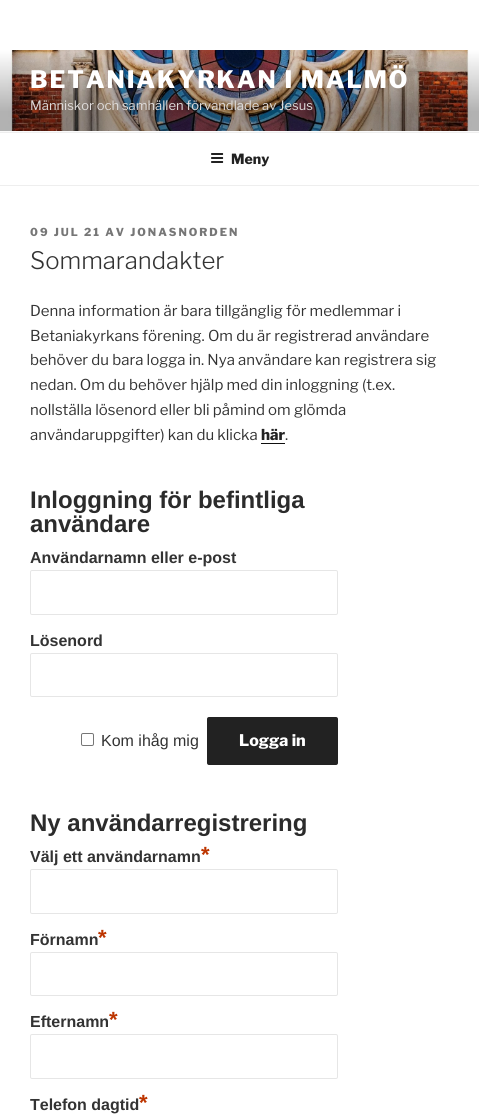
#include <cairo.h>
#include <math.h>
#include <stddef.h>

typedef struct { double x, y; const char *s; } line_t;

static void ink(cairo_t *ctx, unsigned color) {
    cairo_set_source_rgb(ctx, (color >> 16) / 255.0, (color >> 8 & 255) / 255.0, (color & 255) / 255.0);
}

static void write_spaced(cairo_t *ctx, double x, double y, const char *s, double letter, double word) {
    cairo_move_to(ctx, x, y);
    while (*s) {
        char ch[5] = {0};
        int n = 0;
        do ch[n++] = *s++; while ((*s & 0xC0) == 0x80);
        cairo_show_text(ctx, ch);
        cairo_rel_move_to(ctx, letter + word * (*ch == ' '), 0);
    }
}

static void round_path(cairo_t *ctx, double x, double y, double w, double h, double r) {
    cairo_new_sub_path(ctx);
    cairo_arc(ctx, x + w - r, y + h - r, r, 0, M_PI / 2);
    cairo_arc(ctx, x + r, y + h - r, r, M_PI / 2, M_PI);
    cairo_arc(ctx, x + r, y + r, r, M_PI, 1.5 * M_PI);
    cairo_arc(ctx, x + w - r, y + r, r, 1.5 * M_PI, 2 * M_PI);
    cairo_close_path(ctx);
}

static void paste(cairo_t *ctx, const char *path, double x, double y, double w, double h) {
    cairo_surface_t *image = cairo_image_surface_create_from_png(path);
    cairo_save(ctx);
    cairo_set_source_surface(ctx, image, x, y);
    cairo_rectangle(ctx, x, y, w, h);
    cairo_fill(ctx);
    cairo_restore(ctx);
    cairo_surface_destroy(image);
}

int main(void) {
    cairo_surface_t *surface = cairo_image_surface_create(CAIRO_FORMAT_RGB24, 479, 1115);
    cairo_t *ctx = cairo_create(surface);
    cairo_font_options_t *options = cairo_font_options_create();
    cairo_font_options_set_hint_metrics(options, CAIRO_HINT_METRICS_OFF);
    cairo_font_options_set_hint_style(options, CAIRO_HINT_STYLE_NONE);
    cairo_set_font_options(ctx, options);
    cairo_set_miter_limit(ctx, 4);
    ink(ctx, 0xFFFFFF);
    cairo_paint(ctx);
    ink(ctx, 0xFAFAFA);
    cairo_rectangle(ctx, 0, 131, 479, 1);
    cairo_fill(ctx);
    paste(ctx, "media/1.png", 0, 50, 479, 81);
    cairo_select_font_face(ctx, "Libre Franklin Thin", CAIRO_FONT_SLANT_NORMAL, CAIRO_FONT_WEIGHT_NORMAL);
    cairo_set_font_size(ctx, 24);
    ink(ctx, 0xFFFFFF);
    write_spaced(ctx, 30, 88, "BETANIAKYRKAN I MALMÖ", 1.9, 0);
    cairo_select_font_face(ctx, "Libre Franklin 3 Thin", CAIRO_FONT_SLANT_NORMAL, CAIRO_FONT_WEIGHT_NORMAL);
    cairo_set_font_size(ctx, 13);
    ink(ctx, 0xDFDCDB);
    cairo_move_to(ctx, 30, 110);
    cairo_show_text(ctx, "Människor och samhällen förvandlade av Jesus");
    ink(ctx, 0xEEEEEE);
    cairo_rectangle(ctx, 0, 132, 479, 1);
    cairo_fill(ctx);
    cairo_rectangle(ctx, 0, 185, 479, 1);
    cairo_fill(ctx);
    paste(ctx, "media/2.png", 211, 153, 13, 10);
    cairo_select_font_face(ctx, "Libre Franklin Thin", CAIRO_FONT_SLANT_NORMAL, CAIRO_FONT_WEIGHT_NORMAL);
    cairo_set_font_size(ctx, 14);
    ink(ctx, 0x222222);
    cairo_move_to(ctx, 231, 164);
    cairo_show_text(ctx, "Meny");
    cairo_set_font_size(ctx, 11);
    ink(ctx, 0x767676);
    write_spaced(ctx, 30, 236, "09 JUL 21 AV JONASNORDEN", 2, 0);
    cairo_select_font_face(ctx, "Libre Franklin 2 Thin", CAIRO_FONT_SLANT_NORMAL, CAIRO_FONT_WEIGHT_NORMAL);
    cairo_set_font_size(ctx, 24);
    ink(ctx, 0x333333);
    cairo_move_to(ctx, 30, 269);
    cairo_show_text(ctx, "Sommarandakter");
    cairo_select_font_face(ctx, "Libre Franklin 3 Thin", CAIRO_FONT_SLANT_NORMAL, CAIRO_FONT_WEIGHT_NORMAL);
    cairo_set_font_size(ctx, 15);
    {
        static const line_t items[] = {
            {30, 316, "Denna information är bara tillgänglig för medlemmar i"},
            {30, 341, "Betaniakyrkans förening. Om du är registrerad användare"},
            {30, 365, "behöver du bara logga in. Nya användare kan registrera sig"},
            {30, 390, "nedan. Om du behöver hjälp med din inloggning (t.ex."},
            {30, 415, "nollställa lösenord eller bli påmind om glömda"},
            {30, 440, "användaruppgifter) kan du klicka"},
        };
        for (size_t i = 0; i < sizeof items / sizeof *items; i++) {
            cairo_move_to(ctx, items[i].x, items[i].y);
            cairo_show_text(ctx, items[i].s);
        }
    }
    cairo_select_font_face(ctx, "Libre Franklin Thin", CAIRO_FONT_SLANT_NORMAL, CAIRO_FONT_WEIGHT_NORMAL);
    ink(ctx, 0x222222);
    cairo_move_to(ctx, 261, 440);
    cairo_show_text(ctx, "här");
    ink(ctx, 0x0F0F0F);
    cairo_rectangle(ctx, 261, 443, 24, 1);
    cairo_fill(ctx);
    cairo_select_font_face(ctx, "Libre Franklin 3 Thin", CAIRO_FONT_SLANT_NORMAL, CAIRO_FONT_WEIGHT_NORMAL);
    ink(ctx, 0x333333);
    cairo_move_to(ctx, 285, 440);
    cairo_show_text(ctx, ".");
    cairo_select_font_face(ctx, "Liberation Sans", CAIRO_FONT_SLANT_NORMAL, CAIRO_FONT_WEIGHT_BOLD);
    cairo_set_font_size(ctx, 24);
    ink(ctx, 0x2B2B2B);
    cairo_move_to(ctx, 30, 508);
    cairo_show_text(ctx, "Inloggning för befintliga");
    cairo_move_to(ctx, 30, 532);
    cairo_show_text(ctx, "användare");
    cairo_set_font_size(ctx, 16);
    ink(ctx, 0x333333);
    cairo_move_to(ctx, 30, 563);
    cairo_show_text(ctx, "Användarnamn eller e-post");
    round_path(ctx, 30.5, 570.5, 307, 44, 1.5);
    ink(ctx, 0xE6E6E6);
    cairo_set_line_width(ctx, 1);
    cairo_stroke(ctx);
    ink(ctx, 0x333333);
    cairo_move_to(ctx, 30, 646);
    cairo_show_text(ctx, "Lösenord");
    round_path(ctx, 30.5, 653.5, 307, 43, 1.5);
    ink(ctx, 0xE6E6E6);
    cairo_stroke(ctx);
    round_path(ctx, 81.5, 733.5, 12, 12, 1.5);
    ink(ctx, 0x767676);
    cairo_stroke(ctx);
    cairo_select_font_face(ctx, "Liberation Sans", CAIRO_FONT_SLANT_NORMAL, CAIRO_FONT_WEIGHT_NORMAL);
    ink(ctx, 0x333333);
    cairo_move_to(ctx, 101, 746);
    cairo_show_text(ctx, "Kom ihåg mig");
    ink(ctx, 0x222222);
    round_path(ctx, 207, 717, 131, 48, 2);
    cairo_fill(ctx);
    cairo_select_font_face(ctx, "Libre Franklin Thin", CAIRO_FONT_SLANT_NORMAL, CAIRO_FONT_WEIGHT_NORMAL);
    ink(ctx, 0xFFFFFF);
    cairo_move_to(ctx, 239, 746);
    cairo_show_text(ctx, "Logga in");
    cairo_select_font_face(ctx, "Liberation Sans", CAIRO_FONT_SLANT_NORMAL, CAIRO_FONT_WEIGHT_BOLD);
    cairo_set_font_size(ctx, 24);
    ink(ctx, 0x2B2B2B);
    cairo_move_to(ctx, 30, 831);
    cairo_show_text(ctx, "Ny användarregistrering");
    cairo_set_font_size(ctx, 16);
    ink(ctx, 0x333333);
    cairo_move_to(ctx, 30, 862);
    cairo_show_text(ctx, "Välj ett användarnamn");
    cairo_set_font_size(ctx, 22);
    ink(ctx, 0xBD3500);
    cairo_move_to(ctx, 201, 862);
    cairo_show_text(ctx, "*");
    round_path(ctx, 30.5, 869.5, 307, 44, 1.5);
    ink(ctx, 0xE6E6E6);
    cairo_stroke(ctx);
    cairo_set_font_size(ctx, 16);
    ink(ctx, 0x333333);
    cairo_move_to(ctx, 30, 945);
    cairo_show_text(ctx, "Förnamn");
    cairo_set_font_size(ctx, 22);
    ink(ctx, 0xBD3500);
    cairo_move_to(ctx, 98, 945);
    cairo_show_text(ctx, "*");
    round_path(ctx, 30.5, 952.5, 307, 43, 1.5);
    ink(ctx, 0xE6E6E6);
    cairo_stroke(ctx);
    cairo_set_font_size(ctx, 16);
    ink(ctx, 0x333333);
    cairo_move_to(ctx, 30, 1027);
    cairo_show_text(ctx, "Efternamn");
    cairo_set_font_size(ctx, 22);
    ink(ctx, 0xBD3500);
    cairo_move_to(ctx, 109, 1027);
    cairo_show_text(ctx, "*");
    round_path(ctx, 30.5, 1034.5, 307, 44, 1.5);
    ink(ctx, 0xE6E6E6);
    cairo_stroke(ctx);
    cairo_set_font_size(ctx, 16);
    ink(ctx, 0x333333);
    cairo_move_to(ctx, 30, 1110);
    cairo_show_text(ctx, "Telefon dagtid");
    cairo_set_font_size(ctx, 22);
    ink(ctx, 0xBD3500);
    cairo_move_to(ctx, 139, 1110);
    cairo_show_text(ctx, "*");
    cairo_surface_write_to_png(surface, "image.png");
    cairo_font_options_destroy(options);
    cairo_destroy(ctx);
    cairo_surface_destroy(surface);
    return 0;
}
